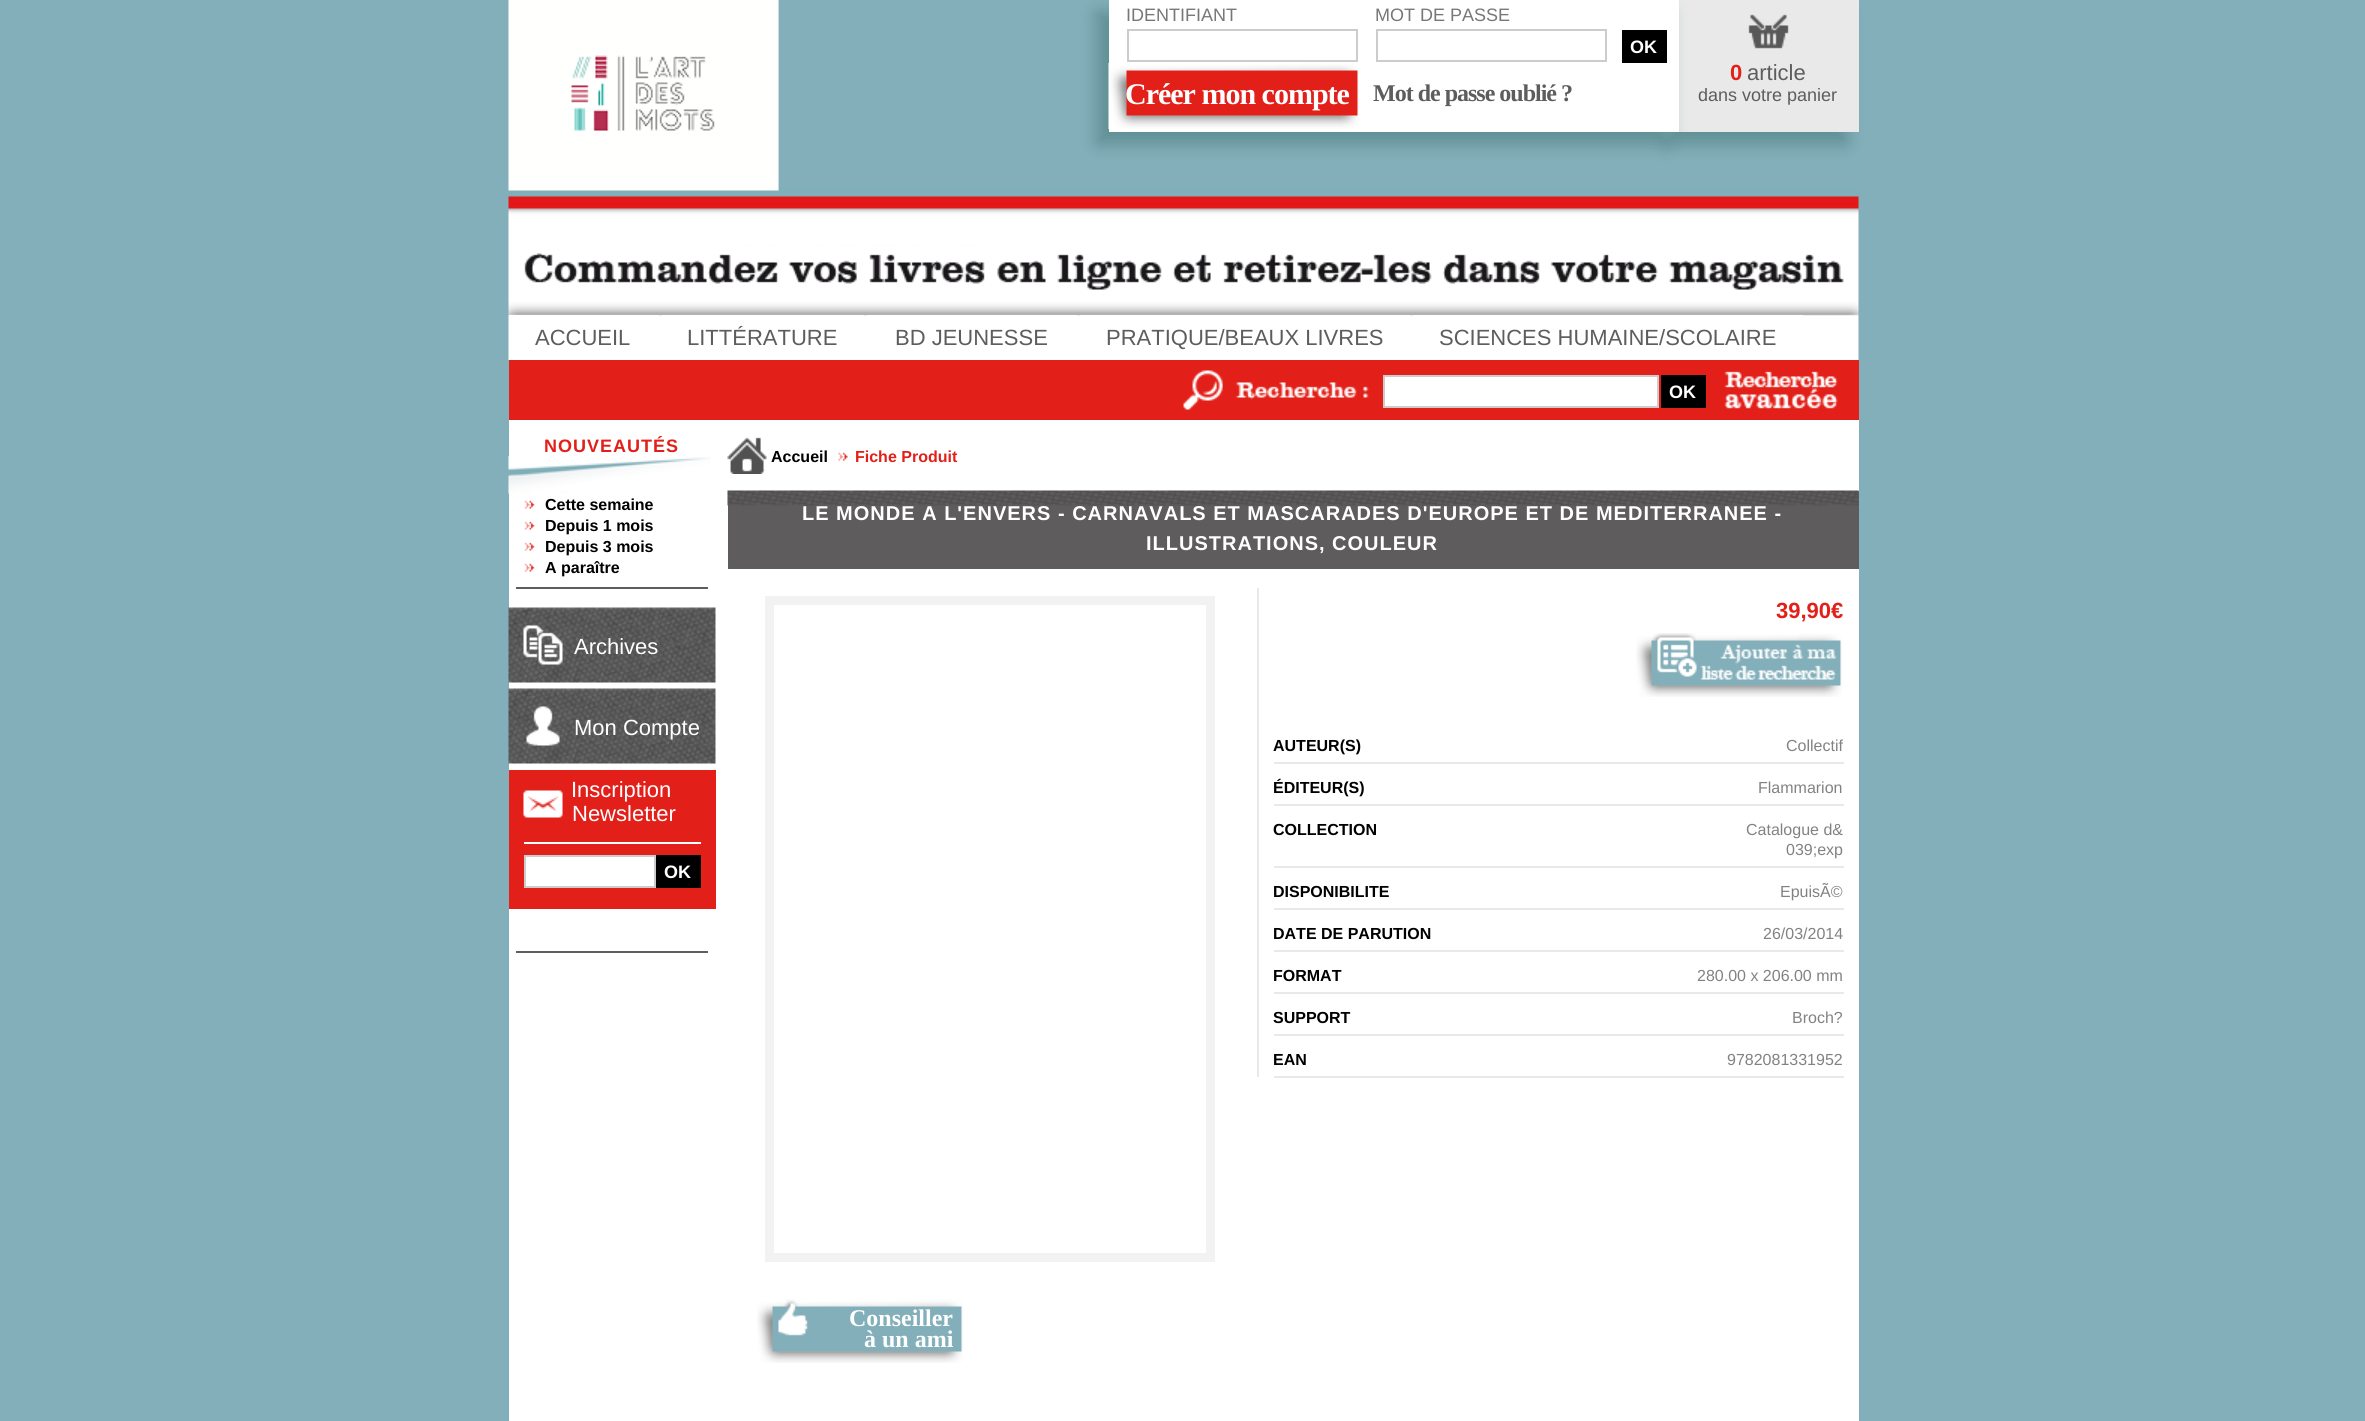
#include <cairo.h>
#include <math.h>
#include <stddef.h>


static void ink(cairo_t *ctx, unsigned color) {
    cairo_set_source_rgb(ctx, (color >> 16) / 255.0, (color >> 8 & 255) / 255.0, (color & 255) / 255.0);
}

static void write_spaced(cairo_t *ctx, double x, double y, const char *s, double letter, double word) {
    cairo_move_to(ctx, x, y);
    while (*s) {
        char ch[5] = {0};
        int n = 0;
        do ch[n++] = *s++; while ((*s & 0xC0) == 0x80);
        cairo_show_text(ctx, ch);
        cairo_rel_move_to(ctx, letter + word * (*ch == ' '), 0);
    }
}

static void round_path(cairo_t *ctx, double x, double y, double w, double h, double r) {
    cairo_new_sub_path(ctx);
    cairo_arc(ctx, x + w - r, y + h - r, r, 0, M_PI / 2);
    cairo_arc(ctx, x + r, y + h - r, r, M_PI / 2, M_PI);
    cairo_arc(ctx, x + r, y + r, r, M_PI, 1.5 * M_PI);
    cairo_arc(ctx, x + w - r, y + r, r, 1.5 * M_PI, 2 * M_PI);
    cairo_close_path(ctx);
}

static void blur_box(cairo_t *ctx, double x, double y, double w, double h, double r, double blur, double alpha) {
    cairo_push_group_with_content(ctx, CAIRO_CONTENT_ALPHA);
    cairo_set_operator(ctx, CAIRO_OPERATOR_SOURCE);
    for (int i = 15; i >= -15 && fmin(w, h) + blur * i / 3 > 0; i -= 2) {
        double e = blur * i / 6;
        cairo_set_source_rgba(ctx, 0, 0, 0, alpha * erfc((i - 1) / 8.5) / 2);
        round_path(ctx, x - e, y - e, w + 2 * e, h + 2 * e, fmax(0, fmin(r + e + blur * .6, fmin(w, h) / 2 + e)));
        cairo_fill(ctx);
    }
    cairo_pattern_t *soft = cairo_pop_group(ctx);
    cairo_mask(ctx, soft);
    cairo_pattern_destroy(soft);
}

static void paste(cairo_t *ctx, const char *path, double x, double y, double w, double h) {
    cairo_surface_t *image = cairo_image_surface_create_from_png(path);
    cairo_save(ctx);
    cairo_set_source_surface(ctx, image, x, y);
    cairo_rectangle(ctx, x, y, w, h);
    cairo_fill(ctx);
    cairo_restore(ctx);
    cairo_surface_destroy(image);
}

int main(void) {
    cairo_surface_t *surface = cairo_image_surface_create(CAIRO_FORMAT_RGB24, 2365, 1421);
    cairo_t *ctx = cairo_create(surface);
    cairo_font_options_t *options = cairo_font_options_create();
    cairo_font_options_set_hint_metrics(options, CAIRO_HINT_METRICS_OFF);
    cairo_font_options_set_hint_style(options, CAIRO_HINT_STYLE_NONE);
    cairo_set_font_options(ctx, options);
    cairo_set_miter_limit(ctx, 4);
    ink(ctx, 0x83AFBA);
    cairo_paint(ctx);
    paste(ctx, "media/1.png", 508, 0, 1351, 360);
    ink(ctx, 0x5F8E94);
    blur_box(ctx, 1667, 12, 180, 132, 0, 9, 1);
    ink(ctx, 0xE9E9E9);
    cairo_rectangle(ctx, 1679, 0, 180, 132);
    cairo_fill(ctx);
    paste(ctx, "media/3.png", 1679, 0, 110, 60);
    ink(ctx, 0x5F8E94);
    blur_box(ctx, 1097, 12, 570, 132, 0, 9, 1);
    ink(ctx, 0xFFFFFF);
    cairo_rectangle(ctx, 1109, 0, 570, 132);
    cairo_fill(ctx);
    cairo_select_font_face(ctx, "Liberation Sans", CAIRO_FONT_SLANT_NORMAL, CAIRO_FONT_WEIGHT_NORMAL);
    cairo_set_font_size(ctx, 18);
    ink(ctx, 0x777777);
    cairo_move_to(ctx, 1126, 21);
    cairo_show_text(ctx, "IDENTIFIANT");
    cairo_rectangle(ctx, 1128, 30, 229, 31);
    ink(ctx, 0xCCCCCC);
    cairo_stroke(ctx);
    ink(ctx, 0x777777);
    cairo_move_to(ctx, 1375, 21);
    cairo_show_text(ctx, "MOT DE PASSE");
    cairo_rectangle(ctx, 1377, 30, 229, 31);
    ink(ctx, 0xCCCCCC);
    cairo_stroke(ctx);
    ink(ctx, 0x000000);
    cairo_rectangle(ctx, 1622, 30, 45, 33);
    cairo_fill(ctx);
    cairo_select_font_face(ctx, "Liberation Sans", CAIRO_FONT_SLANT_NORMAL, CAIRO_FONT_WEIGHT_BOLD);
    ink(ctx, 0xFFFFFF);
    cairo_move_to(ctx, 1630, 53);
    cairo_show_text(ctx, "OK");
    paste(ctx, "media/2.png", 1108, 63, 251, 66);
    cairo_select_font_face(ctx, "Liberation Serif", CAIRO_FONT_SLANT_NORMAL, CAIRO_FONT_WEIGHT_BOLD);
    cairo_set_font_size(ctx, 30);
    write_spaced(ctx, 1125, 104, "Créer mon compte", -1, 0);
    cairo_set_font_size(ctx, 24);
    ink(ctx, 0x5E5C5D);
    write_spaced(ctx, 1373, 101, "Mot de passe oublié ?", -1, 0);
    cairo_select_font_face(ctx, "Liberation Sans", CAIRO_FONT_SLANT_NORMAL, CAIRO_FONT_WEIGHT_BOLD);
    cairo_set_font_size(ctx, 22);
    ink(ctx, 0xE22019);
    cairo_move_to(ctx, 1730, 80);
    cairo_show_text(ctx, "0");
    cairo_select_font_face(ctx, "Liberation Sans", CAIRO_FONT_SLANT_NORMAL, CAIRO_FONT_WEIGHT_NORMAL);
    ink(ctx, 0x5E5C5D);
    cairo_move_to(ctx, 1747, 80);
    cairo_show_text(ctx, "article");
    cairo_set_font_size(ctx, 18);
    cairo_move_to(ctx, 1698, 101);
    cairo_show_text(ctx, "dans votre panier");
    ink(ctx, 0xFFFFFF);
    cairo_rectangle(ctx, 509, 315, 150, 1);
    cairo_fill(ctx);
    cairo_set_font_size(ctx, 22);
    ink(ctx, 0x5E5C5D);
    cairo_move_to(ctx, 535, 345);
    cairo_show_text(ctx, "ACCUEIL");
    ink(ctx, 0xFFFFFF);
    cairo_rectangle(ctx, 662, 315, 202, 1);
    cairo_fill(ctx);
    ink(ctx, 0x5E5C5D);
    cairo_move_to(ctx, 687, 345);
    cairo_show_text(ctx, "LITTÉRATURE");
    ink(ctx, 0xFFFFFF);
    cairo_rectangle(ctx, 867, 315, 210, 1);
    cairo_fill(ctx);
    ink(ctx, 0x5E5C5D);
    cairo_move_to(ctx, 895, 345);
    cairo_show_text(ctx, "BD JEUNESSE");
    ink(ctx, 0xFFFFFF);
    cairo_rectangle(ctx, 1080, 315, 330, 1);
    cairo_fill(ctx);
    ink(ctx, 0x5E5C5D);
    cairo_move_to(ctx, 1106, 345);
    cairo_show_text(ctx, "PRATIQUE/BEAUX LIVRES");
    ink(ctx, 0xFFFFFF);
    cairo_rectangle(ctx, 1413, 315, 390, 1);
    cairo_fill(ctx);
    ink(ctx, 0x5E5C5D);
    cairo_move_to(ctx, 1439, 345);
    cairo_show_text(ctx, "SCIENCES HUMAINE/SCOLAIRE");
    ink(ctx, 0xE22019);
    cairo_rectangle(ctx, 509, 360, 1350, 60);
    cairo_fill(ctx);
    paste(ctx, "media/4.png", 1183, 370, 186, 40);
    ink(ctx, 0xFFFFFF);
    cairo_rectangle(ctx, 1384, 376, 274, 31);
    cairo_fill_preserve(ctx);
    ink(ctx, 0xCCCCCC);
    cairo_stroke(ctx);
    ink(ctx, 0x000000);
    cairo_rectangle(ctx, 1661, 375, 45, 33);
    cairo_fill(ctx);
    cairo_select_font_face(ctx, "Liberation Sans", CAIRO_FONT_SLANT_NORMAL, CAIRO_FONT_WEIGHT_BOLD);
    cairo_set_font_size(ctx, 18);
    ink(ctx, 0xFFFFFF);
    cairo_move_to(ctx, 1669, 398);
    cairo_show_text(ctx, "OK");
    paste(ctx, "media/5.png", 1724, 371, 114, 38);
    cairo_rectangle(ctx, 509, 420, 1350, 1001);
    cairo_fill(ctx);
    ink(ctx, 0xE22019);
    write_spaced(ctx, 544, 452, "NOUVEAUTÉS", 1, 0);
    paste(ctx, "media/6.png", 508, 456, 203, 38);
    paste(ctx, "media/7.png", 524, 500, 11, 9);
    cairo_set_font_size(ctx, 16);
    ink(ctx, 0x000000);
    cairo_move_to(ctx, 545, 510);
    cairo_show_text(ctx, "Cette semaine");
    paste(ctx, "media/7.png", 524, 521, 11, 9);
    cairo_move_to(ctx, 545, 531);
    cairo_show_text(ctx, "Depuis 1 mois");
    paste(ctx, "media/7.png", 524, 542, 11, 9);
    cairo_move_to(ctx, 545, 552);
    cairo_show_text(ctx, "Depuis 3 mois");
    paste(ctx, "media/7.png", 524, 563, 11, 9);
    cairo_move_to(ctx, 545, 573);
    cairo_show_text(ctx, "A paraître");
    ink(ctx, 0x5E5C5D);
    cairo_rectangle(ctx, 516, 587, 192, 2);
    cairo_fill(ctx);
    paste(ctx, "media/8.png", 508, 607, 208, 76);
    paste(ctx, "media/9.png", 523, 625, 40, 40);
    cairo_select_font_face(ctx, "Liberation Sans", CAIRO_FONT_SLANT_NORMAL, CAIRO_FONT_WEIGHT_NORMAL);
    cairo_set_font_size(ctx, 22);
    ink(ctx, 0xFFFFFF);
    cairo_move_to(ctx, 574, 654);
    cairo_show_text(ctx, "Archives");
    paste(ctx, "media/8.png", 508, 688, 208, 76);
    paste(ctx, "media/10.png", 526, 706, 34, 40);
    cairo_move_to(ctx, 574, 735);
    cairo_show_text(ctx, "Mon Compte");
    ink(ctx, 0xE22019);
    cairo_rectangle(ctx, 509, 770, 207, 139);
    cairo_fill(ctx);
    paste(ctx, "media/11.png", 523, 790, 40, 28);
    ink(ctx, 0xFFFFFF);
    cairo_move_to(ctx, 571, 797);
    cairo_show_text(ctx, "Inscription");
    cairo_move_to(ctx, 572, 821);
    cairo_show_text(ctx, "Newsletter");
    cairo_rectangle(ctx, 524, 842, 177, 2);
    cairo_fill(ctx);
    cairo_rectangle(ctx, 525, 856, 130, 31);
    cairo_fill_preserve(ctx);
    ink(ctx, 0xCCCCCC);
    cairo_stroke(ctx);
    ink(ctx, 0x000000);
    cairo_rectangle(ctx, 656, 855, 45, 33);
    cairo_fill(ctx);
    cairo_select_font_face(ctx, "Liberation Sans", CAIRO_FONT_SLANT_NORMAL, CAIRO_FONT_WEIGHT_BOLD);
    cairo_set_font_size(ctx, 18);
    ink(ctx, 0xFFFFFF);
    cairo_move_to(ctx, 664, 878);
    cairo_show_text(ctx, "OK");
    ink(ctx, 0x5E5C5D);
    cairo_rectangle(ctx, 516, 951, 192, 2);
    cairo_fill(ctx);
    paste(ctx, "media/12.png", 727, 437, 40, 37);
    cairo_set_font_size(ctx, 16);
    ink(ctx, 0x000000);
    cairo_move_to(ctx, 771, 462);
    cairo_show_text(ctx, "Accueil");
    paste(ctx, "media/13.png", 838, 452, 10, 9);
    ink(ctx, 0xE22019);
    cairo_move_to(ctx, 855, 462);
    cairo_show_text(ctx, "Fiche Produit");
    ink(ctx, 0x5E5C5D);
    cairo_rectangle(ctx, 728, 491, 1131, 78);
    cairo_fill(ctx);
    paste(ctx, "media/14.png", 727, 490, 1132, 16);
    cairo_set_font_size(ctx, 20);
    ink(ctx, 0xFFFFFF);
    write_spaced(ctx, 802, 520, "LE MONDE A L'ENVERS - CARNAVALS ET MASCARADES D'EUROPE ET DE MEDITERRANEE -", 1, 0);
    write_spaced(ctx, 1146, 550, "ILLUSTRATIONS, COULEUR", 1, 0);
    ink(ctx, 0xE9E9E9);
    cairo_rectangle(ctx, 1257, 588, 2, 489);
    cairo_fill(ctx);
    cairo_set_font_size(ctx, 22);
    ink(ctx, 0xE22019);
    cairo_move_to(ctx, 1776, 618);
    cairo_show_text(ctx, "39,90€");
    paste(ctx, "media/15.png", 1636, 633, 206, 64);
    ink(ctx, 0xE9E9E9);
    cairo_rectangle(ctx, 1274, 762, 570, 2);
    cairo_fill(ctx);
    cairo_set_font_size(ctx, 16);
    ink(ctx, 0x000000);
    cairo_move_to(ctx, 1273, 751);
    cairo_show_text(ctx, "AUTEUR(S)");
    cairo_select_font_face(ctx, "Liberation Sans", CAIRO_FONT_SLANT_NORMAL, CAIRO_FONT_WEIGHT_NORMAL);
    ink(ctx, 0x828282);
    cairo_move_to(ctx, 1786, 751);
    cairo_show_text(ctx, "Collectif");
    ink(ctx, 0xE9E9E9);
    cairo_rectangle(ctx, 1274, 804, 570, 2);
    cairo_fill(ctx);
    cairo_select_font_face(ctx, "Liberation Sans", CAIRO_FONT_SLANT_NORMAL, CAIRO_FONT_WEIGHT_BOLD);
    ink(ctx, 0x000000);
    cairo_move_to(ctx, 1273, 793);
    cairo_show_text(ctx, "ÉDITEUR(S)");
    cairo_select_font_face(ctx, "Liberation Sans", CAIRO_FONT_SLANT_NORMAL, CAIRO_FONT_WEIGHT_NORMAL);
    ink(ctx, 0x828282);
    cairo_move_to(ctx, 1758, 793);
    cairo_show_text(ctx, "Flammarion");
    ink(ctx, 0xE9E9E9);
    cairo_rectangle(ctx, 1274, 866, 570, 2);
    cairo_fill(ctx);
    cairo_select_font_face(ctx, "Liberation Sans", CAIRO_FONT_SLANT_NORMAL, CAIRO_FONT_WEIGHT_BOLD);
    ink(ctx, 0x000000);
    cairo_move_to(ctx, 1273, 835);
    cairo_show_text(ctx, "COLLECTION");
    cairo_select_font_face(ctx, "Liberation Sans", CAIRO_FONT_SLANT_NORMAL, CAIRO_FONT_WEIGHT_NORMAL);
    ink(ctx, 0x828282);
    cairo_move_to(ctx, 1746, 835);
    cairo_show_text(ctx, "Catalogue d&");
    cairo_move_to(ctx, 1786, 855);
    cairo_show_text(ctx, "039;exp");
    ink(ctx, 0xE9E9E9);
    cairo_rectangle(ctx, 1274, 908, 570, 2);
    cairo_fill(ctx);
    cairo_select_font_face(ctx, "Liberation Sans", CAIRO_FONT_SLANT_NORMAL, CAIRO_FONT_WEIGHT_BOLD);
    ink(ctx, 0x000000);
    cairo_move_to(ctx, 1273, 897);
    cairo_show_text(ctx, "DISPONIBILITE");
    cairo_select_font_face(ctx, "Liberation Sans", CAIRO_FONT_SLANT_NORMAL, CAIRO_FONT_WEIGHT_NORMAL);
    ink(ctx, 0x828282);
    cairo_move_to(ctx, 1780, 897);
    cairo_show_text(ctx, "EpuisÃ©");
    ink(ctx, 0xE9E9E9);
    cairo_rectangle(ctx, 1274, 950, 570, 2);
    cairo_fill(ctx);
    cairo_select_font_face(ctx, "Liberation Sans", CAIRO_FONT_SLANT_NORMAL, CAIRO_FONT_WEIGHT_BOLD);
    ink(ctx, 0x000000);
    cairo_move_to(ctx, 1273, 939);
    cairo_show_text(ctx, "DATE DE PARUTION");
    cairo_select_font_face(ctx, "Liberation Sans", CAIRO_FONT_SLANT_NORMAL, CAIRO_FONT_WEIGHT_NORMAL);
    ink(ctx, 0x828282);
    cairo_move_to(ctx, 1763, 939);
    cairo_show_text(ctx, "26/03/2014");
    ink(ctx, 0xE9E9E9);
    cairo_rectangle(ctx, 1274, 992, 570, 2);
    cairo_fill(ctx);
    cairo_select_font_face(ctx, "Liberation Sans", CAIRO_FONT_SLANT_NORMAL, CAIRO_FONT_WEIGHT_BOLD);
    ink(ctx, 0x000000);
    cairo_move_to(ctx, 1273, 981);
    cairo_show_text(ctx, "FORMAT");
    cairo_select_font_face(ctx, "Liberation Sans", CAIRO_FONT_SLANT_NORMAL, CAIRO_FONT_WEIGHT_NORMAL);
    ink(ctx, 0x828282);
    cairo_move_to(ctx, 1697, 981);
    cairo_show_text(ctx, "280.00 x 206.00 mm");
    ink(ctx, 0xE9E9E9);
    cairo_rectangle(ctx, 1274, 1034, 570, 2);
    cairo_fill(ctx);
    cairo_select_font_face(ctx, "Liberation Sans", CAIRO_FONT_SLANT_NORMAL, CAIRO_FONT_WEIGHT_BOLD);
    ink(ctx, 0x000000);
    cairo_move_to(ctx, 1273, 1023);
    cairo_show_text(ctx, "SUPPORT");
    cairo_select_font_face(ctx, "Liberation Sans", CAIRO_FONT_SLANT_NORMAL, CAIRO_FONT_WEIGHT_NORMAL);
    ink(ctx, 0x828282);
    cairo_move_to(ctx, 1792, 1023);
    cairo_show_text(ctx, "Broch?");
    ink(ctx, 0xE9E9E9);
    cairo_rectangle(ctx, 1274, 1076, 570, 2);
    cairo_fill(ctx);
    cairo_select_font_face(ctx, "Liberation Sans", CAIRO_FONT_SLANT_NORMAL, CAIRO_FONT_WEIGHT_BOLD);
    ink(ctx, 0x000000);
    cairo_move_to(ctx, 1273, 1065);
    cairo_show_text(ctx, "EAN");
    cairo_select_font_face(ctx, "Liberation Sans", CAIRO_FONT_SLANT_NORMAL, CAIRO_FONT_WEIGHT_NORMAL);
    ink(ctx, 0x828282);
    cairo_move_to(ctx, 1727, 1065);
    cairo_show_text(ctx, "9782081331952");
    cairo_rectangle(ctx, 769.5, 600.5, 441, 657);
    ink(ctx, 0xF2F2F2);
    cairo_set_line_width(ctx, 9);
    cairo_stroke(ctx);
    paste(ctx, "media/16.png", 757, 1299, 206, 64);
    cairo_select_font_face(ctx, "Liberation Serif", CAIRO_FONT_SLANT_NORMAL, CAIRO_FONT_WEIGHT_BOLD);
    cairo_set_font_size(ctx, 24);
    ink(ctx, 0xFFFFFF);
    cairo_move_to(ctx, 849, 1326);
    cairo_show_text(ctx, "Conseiller");
    cairo_move_to(ctx, 864, 1347);
    cairo_show_text(ctx, "à un ami");
    cairo_surface_write_to_png(surface, "image.png");
    cairo_font_options_destroy(options);
    cairo_destroy(ctx);
    cairo_surface_destroy(surface);
    return 0;
}
